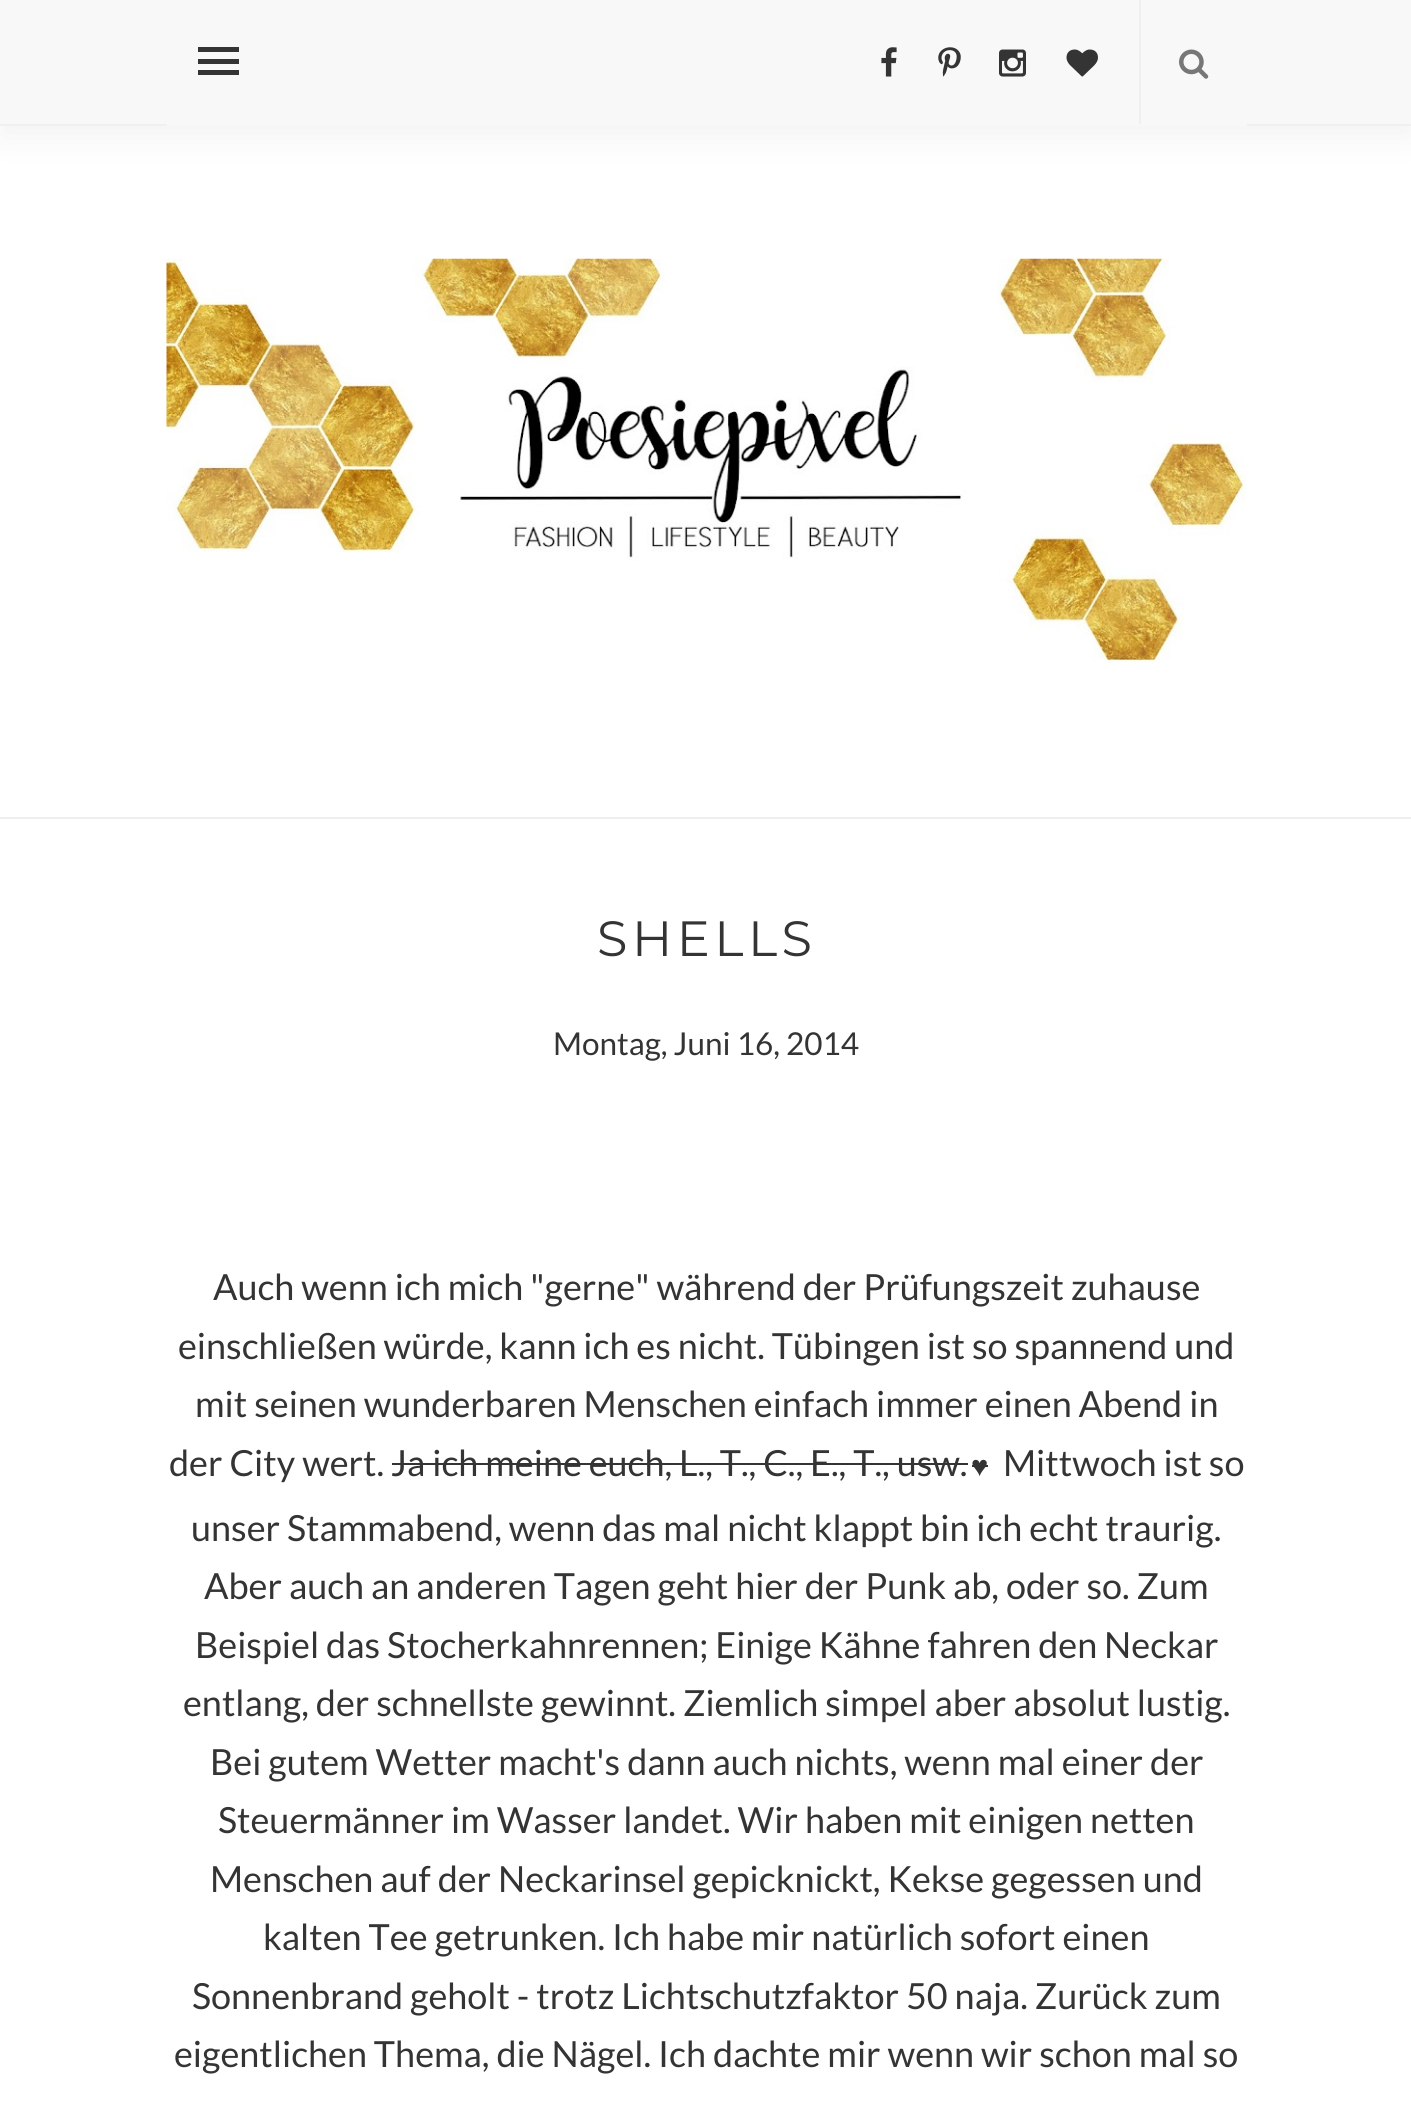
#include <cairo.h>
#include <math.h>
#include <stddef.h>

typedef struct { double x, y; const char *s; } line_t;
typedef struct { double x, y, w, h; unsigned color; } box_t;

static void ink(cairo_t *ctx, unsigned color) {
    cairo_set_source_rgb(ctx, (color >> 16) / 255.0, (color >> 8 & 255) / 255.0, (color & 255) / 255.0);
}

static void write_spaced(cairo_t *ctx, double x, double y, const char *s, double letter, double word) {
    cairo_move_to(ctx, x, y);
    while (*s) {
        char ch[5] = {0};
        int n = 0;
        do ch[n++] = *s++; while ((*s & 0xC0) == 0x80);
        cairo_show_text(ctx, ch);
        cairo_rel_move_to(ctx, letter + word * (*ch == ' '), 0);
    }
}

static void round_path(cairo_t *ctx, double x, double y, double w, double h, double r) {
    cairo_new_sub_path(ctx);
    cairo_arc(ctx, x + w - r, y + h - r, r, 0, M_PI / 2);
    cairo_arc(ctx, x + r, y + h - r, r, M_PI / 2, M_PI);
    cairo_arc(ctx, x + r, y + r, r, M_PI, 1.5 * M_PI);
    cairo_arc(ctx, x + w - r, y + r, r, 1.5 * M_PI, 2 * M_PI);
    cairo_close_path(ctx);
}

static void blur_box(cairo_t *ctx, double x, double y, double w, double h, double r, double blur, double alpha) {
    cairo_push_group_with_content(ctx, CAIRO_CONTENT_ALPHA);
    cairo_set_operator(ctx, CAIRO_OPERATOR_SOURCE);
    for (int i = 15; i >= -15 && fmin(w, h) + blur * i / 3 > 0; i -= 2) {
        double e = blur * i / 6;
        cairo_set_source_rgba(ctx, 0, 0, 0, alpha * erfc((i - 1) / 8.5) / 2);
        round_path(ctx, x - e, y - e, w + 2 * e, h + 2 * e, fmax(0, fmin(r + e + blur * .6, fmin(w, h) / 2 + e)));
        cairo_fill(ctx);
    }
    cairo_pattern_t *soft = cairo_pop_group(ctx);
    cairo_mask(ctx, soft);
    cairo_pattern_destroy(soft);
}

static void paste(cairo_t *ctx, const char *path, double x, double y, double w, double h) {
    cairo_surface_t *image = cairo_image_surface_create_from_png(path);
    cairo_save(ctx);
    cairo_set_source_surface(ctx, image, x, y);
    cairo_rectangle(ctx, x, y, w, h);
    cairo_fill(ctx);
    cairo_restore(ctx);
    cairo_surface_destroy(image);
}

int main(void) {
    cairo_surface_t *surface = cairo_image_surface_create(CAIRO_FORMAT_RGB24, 1411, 2106);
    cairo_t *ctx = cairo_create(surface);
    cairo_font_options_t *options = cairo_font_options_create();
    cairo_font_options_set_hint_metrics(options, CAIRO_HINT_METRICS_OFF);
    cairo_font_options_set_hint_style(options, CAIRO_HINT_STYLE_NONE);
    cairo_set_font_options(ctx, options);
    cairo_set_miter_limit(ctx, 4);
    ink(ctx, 0xFFFFFF);
    cairo_paint(ctx);
    ink(ctx, 0x000000);
    blur_box(ctx, 0, 11, 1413, 126, 0, 17, 0.05);
    {
        static const box_t items[] = {
            {0, 0, 1411, 124, 0xF8F8F8},
            {0, 124, 1411, 2, 0xF0F0F0},
            {1139, 0, 2, 124, 0xF0F0F0},
        };
        for (size_t i = 0; i < sizeof items / sizeof *items; i++) {
            ink(ctx, items[i].color);
            cairo_rectangle(ctx, items[i].x, items[i].y, items[i].w, items[i].h);
            cairo_fill(ctx);
        }
    }
    paste(ctx, "media/1.png", 1179, 49, 30, 30);
    {
        static const box_t items[] = {
            {167, 124, 1080, 2, 0xF8F8F8},
            {198, 47, 41, 5, 0x343434},
            {198, 59, 41, 5, 0x343434},
            {198, 70, 41, 5, 0x343434},
        };
        for (size_t i = 0; i < sizeof items / sizeof *items; i++) {
            ink(ctx, items[i].color);
            cairo_rectangle(ctx, items[i].x, items[i].y, items[i].w, items[i].h);
            cairo_fill(ctx);
        }
    }
    paste(ctx, "media/2.png", 881, 47, 16, 30);
    paste(ctx, "media/3.png", 938, 47, 23, 30);
    paste(ctx, "media/4.png", 999, 49, 27, 28);
    paste(ctx, "media/5.png", 1066, 49, 32, 28);
    ink(ctx, 0xEEEEEE);
    cairo_rectangle(ctx, 0, 817, 1411, 2);
    cairo_fill(ctx);
    paste(ctx, "media/6.png", 166, 258, 1081, 405);
    cairo_select_font_face(ctx, "Montserrat Thin", CAIRO_FONT_SLANT_NORMAL, CAIRO_FONT_WEIGHT_NORMAL);
    cairo_set_font_size(ctx, 49.5);
    ink(ctx, 0x343434);
    write_spaced(ctx, 597, 956, "SHELLS", 4.5, 0);
    cairo_select_font_face(ctx, "Lato", CAIRO_FONT_SLANT_NORMAL, CAIRO_FONT_WEIGHT_NORMAL);
    cairo_set_font_size(ctx, 31.5);
    cairo_move_to(ctx, 553, 1055);
    cairo_show_text(ctx, "Montag, Juni 16, 2014");
    cairo_set_font_size(ctx, 36);
    {
        static const line_t items[] = {
            {213, 1300, "Auch wenn ich mich \"gerne\" während der Prüfungszeit zuhause"},
            {178, 1359, "einschließen würde, kann ich es nicht. Tübingen ist so spannend und"},
            {195, 1417, "mit seinen wunderbaren Menschen einfach immer einen Abend in"},
            {169, 1476, "der City wert. Ja ich meine euch, L., T., C., E., T., usw."},
        };
        for (size_t i = 0; i < sizeof items / sizeof *items; i++) {
            cairo_move_to(ctx, items[i].x, items[i].y);
            cairo_show_text(ctx, items[i].s);
        }
    }
    cairo_select_font_face(ctx, "Liberation Serif", CAIRO_FONT_SLANT_NORMAL, CAIRO_FONT_WEIGHT_NORMAL);
    cairo_set_font_size(ctx, 29);
    cairo_move_to(ctx, 971, 1476);
    cairo_show_text(ctx, "♥");
    cairo_rectangle(ctx, 972, 1465, 16, 2);
    cairo_fill(ctx);
    cairo_select_font_face(ctx, "Lato", CAIRO_FONT_SLANT_NORMAL, CAIRO_FONT_WEIGHT_NORMAL);
    cairo_set_font_size(ctx, 36);
    cairo_move_to(ctx, 1003, 1476);
    cairo_show_text(ctx, "Mittwoch ist so");
    cairo_rectangle(ctx, 392, 1463, 576, 2);
    cairo_fill(ctx);
    {
        static const line_t items[] = {
            {191, 1541, "unser Stammabend, wenn das mal nicht klappt bin ich echt traurig."},
            {204, 1599, "Aber auch an anderen Tagen geht hier der Punk ab, oder so. Zum"},
            {195, 1658, "Beispiel das Stocherkahnrennen; Einige Kähne fahren den Neckar"},
            {183, 1716, "entlang, der schnellste gewinnt. Ziemlich simpel aber absolut lustig."},
            {210, 1775, "Bei gutem Wetter macht's dann auch nichts, wenn mal einer der"},
            {218, 1833, "Steuermänner im Wasser landet. Wir haben mit einigen netten"},
            {210, 1892, "Menschen auf der Neckarinsel gepicknickt, Kekse gegessen und"},
            {263, 1950, "kalten Tee getrunken. Ich habe mir natürlich sofort einen"},
            {192, 2009, "Sonnenbrand geholt - trotz Lichtschutzfaktor 50 naja. Zurück zum"},
            {174, 2067, "eigentlichen Thema, die Nägel. Ich dachte mir wenn wir schon mal so"},
        };
        for (size_t i = 0; i < sizeof items / sizeof *items; i++) {
            cairo_move_to(ctx, items[i].x, items[i].y);
            cairo_show_text(ctx, items[i].s);
        }
    }
    cairo_surface_write_to_png(surface, "image.png");
    cairo_font_options_destroy(options);
    cairo_destroy(ctx);
    cairo_surface_destroy(surface);
    return 0;
}
